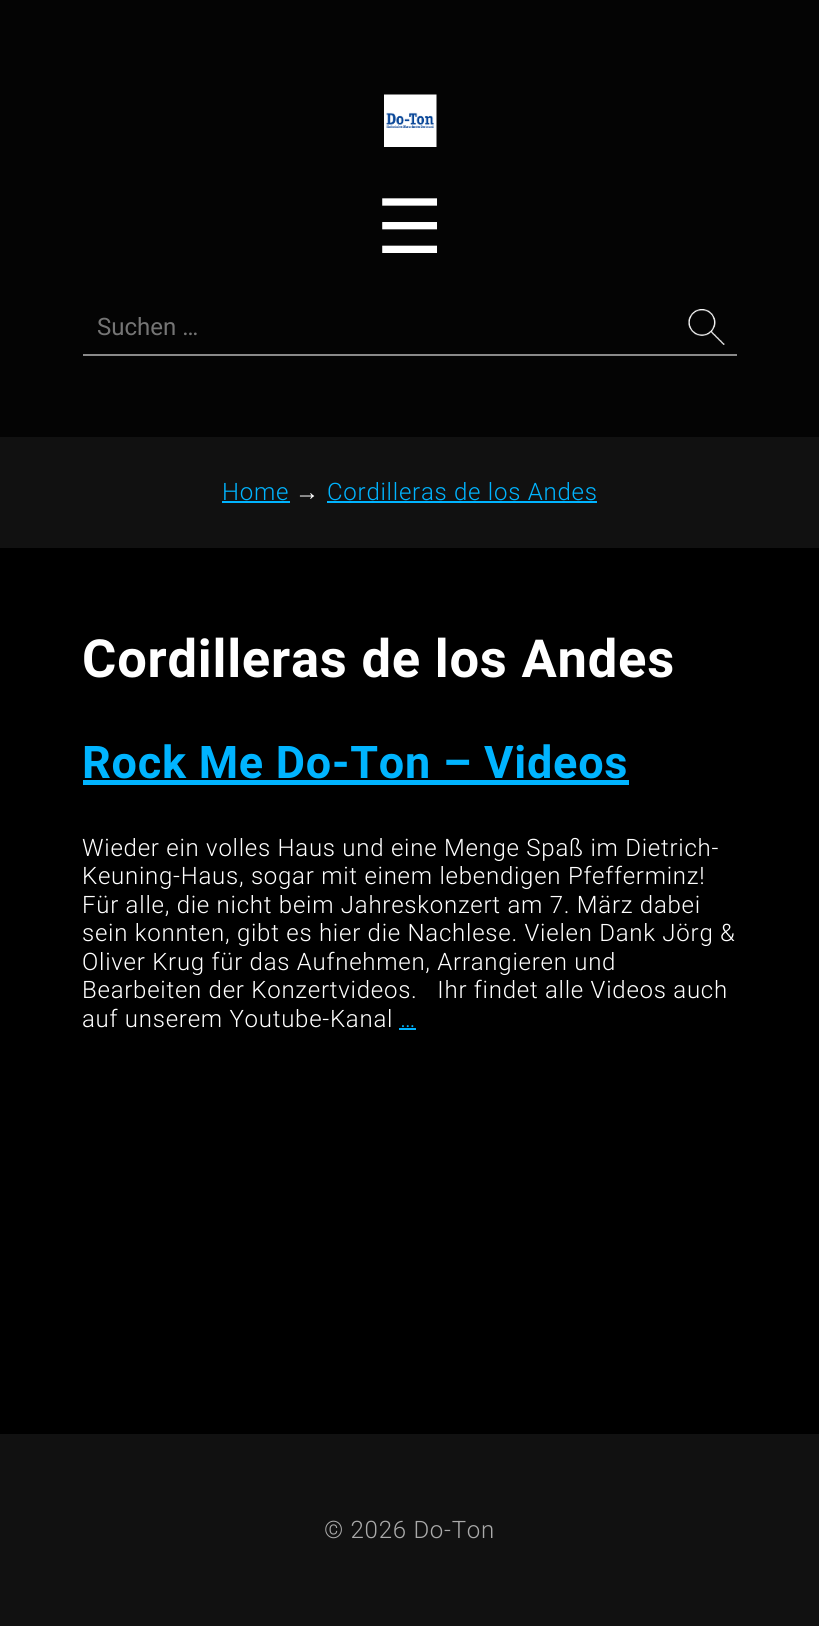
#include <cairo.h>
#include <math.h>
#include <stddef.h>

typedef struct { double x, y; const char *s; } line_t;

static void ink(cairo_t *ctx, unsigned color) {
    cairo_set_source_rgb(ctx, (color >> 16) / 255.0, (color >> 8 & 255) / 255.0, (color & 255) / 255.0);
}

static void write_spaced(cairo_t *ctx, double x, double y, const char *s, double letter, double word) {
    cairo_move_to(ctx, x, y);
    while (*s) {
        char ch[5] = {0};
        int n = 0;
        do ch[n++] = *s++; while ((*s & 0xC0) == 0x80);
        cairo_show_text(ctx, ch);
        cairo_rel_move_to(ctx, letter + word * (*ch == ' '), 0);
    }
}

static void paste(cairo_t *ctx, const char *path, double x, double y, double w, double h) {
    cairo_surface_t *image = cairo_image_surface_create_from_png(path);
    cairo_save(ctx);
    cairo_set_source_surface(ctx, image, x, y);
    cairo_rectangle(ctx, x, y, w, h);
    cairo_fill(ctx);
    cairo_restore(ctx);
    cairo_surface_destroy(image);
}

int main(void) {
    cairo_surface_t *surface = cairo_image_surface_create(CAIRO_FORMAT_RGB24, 819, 1626);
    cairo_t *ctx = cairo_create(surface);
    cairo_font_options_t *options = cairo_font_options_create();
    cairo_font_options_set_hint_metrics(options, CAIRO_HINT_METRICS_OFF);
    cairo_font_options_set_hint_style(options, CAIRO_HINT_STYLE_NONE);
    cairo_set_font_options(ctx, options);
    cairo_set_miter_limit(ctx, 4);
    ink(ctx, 0x111111);
    cairo_paint(ctx);
    ink(ctx, 0x040404);
    cairo_rectangle(ctx, 0, 0, 819, 437);
    cairo_fill(ctx);
    paste(ctx, "media/1.png", 384, 94, 53, 53);
    cairo_select_font_face(ctx, "DejaVu Sans", CAIRO_FONT_SLANT_NORMAL, CAIRO_FONT_WEIGHT_NORMAL);
    cairo_set_font_size(ctx, 75);
    ink(ctx, 0xFFFFFF);
    cairo_move_to(ctx, 376, 253);
    cairo_show_text(ctx, "☰");
    paste(ctx, "media/2.png", 688, 309, 37, 36);
    ink(ctx, 0x8A8A8A);
    cairo_rectangle(ctx, 83, 354, 654, 2);
    cairo_fill(ctx);
    cairo_select_font_face(ctx, "Roboto", CAIRO_FONT_SLANT_NORMAL, CAIRO_FONT_WEIGHT_NORMAL);
    cairo_set_font_size(ctx, 24);
    ink(ctx, 0x757575);
    cairo_move_to(ctx, 97, 335);
    cairo_show_text(ctx, "Suchen …");
    cairo_select_font_face(ctx, "Roboto Light", CAIRO_FONT_SLANT_NORMAL, CAIRO_FONT_WEIGHT_NORMAL);
    ink(ctx, 0x00B4FF);
    write_spaced(ctx, 222, 500, "Home", 0.75, 0);
    cairo_rectangle(ctx, 222, 501, 68, 2);
    cairo_fill(ctx);
    cairo_select_font_face(ctx, "Liberation Sans", CAIRO_FONT_SLANT_NORMAL, CAIRO_FONT_WEIGHT_NORMAL);
    ink(ctx, 0xFFFFFF);
    write_spaced(ctx, 295, 500, "→", 0.75, 0);
    cairo_select_font_face(ctx, "Roboto Light", CAIRO_FONT_SLANT_NORMAL, CAIRO_FONT_WEIGHT_NORMAL);
    ink(ctx, 0x00B4FF);
    write_spaced(ctx, 327, 500, "Cordilleras de los Andes", 0.75, 0);
    cairo_rectangle(ctx, 327, 501, 270, 2);
    cairo_fill(ctx);
    ink(ctx, 0x000000);
    cairo_rectangle(ctx, 0, 548, 819, 886);
    cairo_fill(ctx);
    cairo_select_font_face(ctx, "Roboto", CAIRO_FONT_SLANT_NORMAL, CAIRO_FONT_WEIGHT_BOLD);
    cairo_set_font_size(ctx, 52.5);
    ink(ctx, 0xFFFFFF);
    write_spaced(ctx, 82, 677, "Cordilleras de los Andes", 0.75, 0);
    cairo_set_font_size(ctx, 45);
    ink(ctx, 0x00B4FF);
    write_spaced(ctx, 82, 778, "Rock Me Do-Ton – Videos", 0.75, 0);
    cairo_rectangle(ctx, 83, 780, 546, 5);
    cairo_fill(ctx);
    cairo_select_font_face(ctx, "Roboto Light", CAIRO_FONT_SLANT_NORMAL, CAIRO_FONT_WEIGHT_NORMAL);
    cairo_set_font_size(ctx, 24);
    ink(ctx, 0xFFFFFF);
    {
        static const line_t items[] = {
            {82, 856, "Wieder ein volles Haus und eine Menge Spaß im Dietrich-"},
            {82, 884, "Keuning-Haus, sogar mit einem lebendigen Pfefferminz!"},
            {82, 913, "Für alle, die nicht beim Jahreskonzert am 7. März dabei"},
            {82, 941, "sein konnten, gibt es hier die Nachlese. Vielen Dank Jörg &"},
            {82, 970, "Oliver Krug für das Aufnehmen, Arrangieren und"},
            {82, 998, "Bearbeiten der Konzertvideos.   Ihr findet alle Videos auch"},
            {82, 1027, "auf unserem Youtube-Kanal"},
        };
        for (size_t i = 0; i < sizeof items / sizeof *items; i++) {
            write_spaced(ctx, items[i].x, items[i].y, items[i].s, 0.75, 0);
        }
    }
    ink(ctx, 0x00B4FF);
    write_spaced(ctx, 400, 1027, "…", 0.75, 0);
    cairo_rectangle(ctx, 399, 1028, 17, 2);
    cairo_fill(ctx);
    ink(ctx, 0xAAAAAA);
    write_spaced(ctx, 324, 1538, "© 2026 Do-Ton", 0.75, 0);
    cairo_surface_write_to_png(surface, "image.png");
    cairo_font_options_destroy(options);
    cairo_destroy(ctx);
    cairo_surface_destroy(surface);
    return 0;
}
